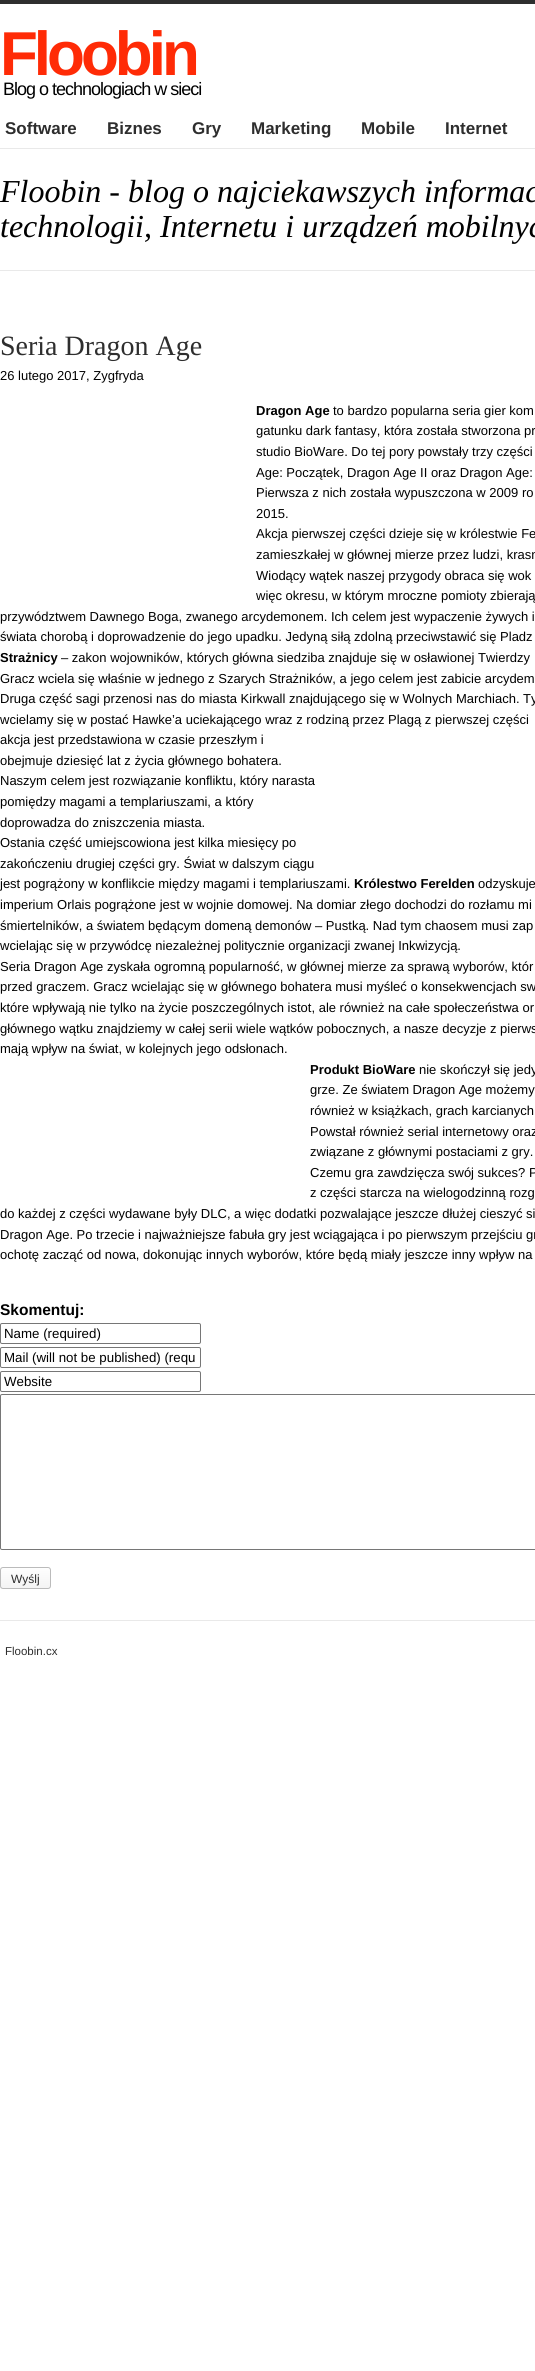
#include <cairo.h>
#include <math.h>
#include <stddef.h>

typedef struct { double x, y; const char *s; } line_t;

static void ink(cairo_t *ctx, unsigned color) {
    cairo_set_source_rgb(ctx, (color >> 16) / 255.0, (color >> 8 & 255) / 255.0, (color & 255) / 255.0);
}

static void write_spaced(cairo_t *ctx, double x, double y, const char *s, double letter, double word) {
    cairo_move_to(ctx, x, y);
    while (*s) {
        char ch[5] = {0};
        int n = 0;
        do ch[n++] = *s++; while ((*s & 0xC0) == 0x80);
        cairo_show_text(ctx, ch);
        cairo_rel_move_to(ctx, letter + word * (*ch == ' '), 0);
    }
}

static void round_path(cairo_t *ctx, double x, double y, double w, double h, double r) {
    cairo_new_sub_path(ctx);
    cairo_arc(ctx, x + w - r, y + h - r, r, 0, M_PI / 2);
    cairo_arc(ctx, x + r, y + h - r, r, M_PI / 2, M_PI);
    cairo_arc(ctx, x + r, y + r, r, M_PI, 1.5 * M_PI);
    cairo_arc(ctx, x + w - r, y + r, r, 1.5 * M_PI, 2 * M_PI);
    cairo_close_path(ctx);
}

int main(void) {
    cairo_surface_t *surface = cairo_image_surface_create(CAIRO_FORMAT_RGB24, 535, 2371);
    cairo_t *ctx = cairo_create(surface);
    cairo_font_options_t *options = cairo_font_options_create();
    cairo_font_options_set_hint_metrics(options, CAIRO_HINT_METRICS_OFF);
    cairo_font_options_set_hint_style(options, CAIRO_HINT_STYLE_NONE);
    cairo_set_font_options(ctx, options);
    cairo_set_miter_limit(ctx, 4);
    cairo_pattern_t *gradient;
    ink(ctx, 0xFFFFFF);
    cairo_paint(ctx);
    ink(ctx, 0x2E2E2E);
    cairo_rectangle(ctx, 0, 0, 535, 4);
    cairo_fill(ctx);
    ink(ctx, 0xE9E9E9);
    cairo_rectangle(ctx, 0, 148, 535, 1);
    cairo_fill(ctx);
    cairo_select_font_face(ctx, "Liberation Sans", CAIRO_FONT_SLANT_NORMAL, CAIRO_FONT_WEIGHT_BOLD);
    cairo_set_font_size(ctx, 62);
    ink(ctx, 0xFF2B06);
    write_spaced(ctx, 0, 75, "Floobin", -4, 0);
    cairo_select_font_face(ctx, "Liberation Sans", CAIRO_FONT_SLANT_NORMAL, CAIRO_FONT_WEIGHT_NORMAL);
    cairo_set_font_size(ctx, 18);
    ink(ctx, 0x000000);
    write_spaced(ctx, 3, 95, "Blog o technologiach w sieci", -1, 0);
    cairo_select_font_face(ctx, "Liberation Sans", CAIRO_FONT_SLANT_NORMAL, CAIRO_FONT_WEIGHT_BOLD);
    cairo_set_font_size(ctx, 17);
    ink(ctx, 0x2E2E2E);
    {
        static const line_t items[] = {
            {5, 134, "Software"},
            {107, 134, "Biznes"},
            {192, 134, "Gry"},
            {251, 134, "Marketing"},
            {361, 134, "Mobile"},
            {445, 134, "Internet"},
        };
        for (size_t i = 0; i < sizeof items / sizeof *items; i++) {
            cairo_move_to(ctx, items[i].x, items[i].y);
            cairo_show_text(ctx, items[i].s);
        }
    }
    ink(ctx, 0xE9E9E9);
    cairo_rectangle(ctx, 0, 270, 535, 1);
    cairo_fill(ctx);
    cairo_select_font_face(ctx, "Liberation Serif", CAIRO_FONT_SLANT_ITALIC, CAIRO_FONT_WEIGHT_NORMAL);
    cairo_set_font_size(ctx, 32);
    ink(ctx, 0x000000);
    cairo_move_to(ctx, 0, 202);
    cairo_show_text(ctx, "Floobin - blog o najciekawszych informac");
    cairo_move_to(ctx, 0, 237);
    cairo_show_text(ctx, "technologii, Internetu i urządzeń mobilnyc");
    cairo_select_font_face(ctx, "Liberation Serif", CAIRO_FONT_SLANT_NORMAL, CAIRO_FONT_WEIGHT_NORMAL);
    cairo_set_font_size(ctx, 28);
    ink(ctx, 0x2E2E2E);
    cairo_move_to(ctx, 0, 355);
    cairo_show_text(ctx, "Seria Dragon Age");
    cairo_select_font_face(ctx, "Liberation Sans", CAIRO_FONT_SLANT_NORMAL, CAIRO_FONT_WEIGHT_NORMAL);
    cairo_set_font_size(ctx, 13);
    ink(ctx, 0x000000);
    cairo_move_to(ctx, 0, 380);
    cairo_show_text(ctx, "26 lutego 2017, Zygfryda");
    cairo_select_font_face(ctx, "Liberation Sans", CAIRO_FONT_SLANT_NORMAL, CAIRO_FONT_WEIGHT_BOLD);
    cairo_move_to(ctx, 256, 415);
    cairo_show_text(ctx, "Dragon Age");
    cairo_select_font_face(ctx, "Liberation Sans", CAIRO_FONT_SLANT_NORMAL, CAIRO_FONT_WEIGHT_NORMAL);
    {
        static const line_t items[] = {
            {333, 415, "to bardzo popularna seria gier kom"},
            {256, 435, "gatunku dark fantasy, która została stworzona pr"},
            {256, 456, "studio BioWare. Do tej pory powstały trzy części"},
            {256, 477, "Age: Początek, Dragon Age II oraz Dragon Age:"},
            {256, 497, "Pierwsza z nich została wypuszczona w 2009 ro"},
            {256, 518, "2015."},
            {256, 538, "Akcja pierwszej części dzieje się w królestwie Fe"},
            {256, 559, "zamieszkałej w głównej mierze przez ludzi, krasn"},
            {256, 580, "Wiodący wątek naszej przygody obraca się wok"},
            {256, 600, "więc okresu, w którym mroczne pomioty zbierają"},
            {0, 621, "przywództwem Dawnego Boga, zwanego arcydemonem. Ich celem jest wypaczenie żywych i"},
            {0, 641, "świata chorobą i doprowadzenie do jego upadku. Jedyną siłą zdolną przeciwstawić się Pladz"},
        };
        for (size_t i = 0; i < sizeof items / sizeof *items; i++) {
            cairo_move_to(ctx, items[i].x, items[i].y);
            cairo_show_text(ctx, items[i].s);
        }
    }
    cairo_select_font_face(ctx, "Liberation Sans", CAIRO_FONT_SLANT_NORMAL, CAIRO_FONT_WEIGHT_BOLD);
    cairo_move_to(ctx, 0, 662);
    cairo_show_text(ctx, "Strażnicy");
    cairo_select_font_face(ctx, "Liberation Sans", CAIRO_FONT_SLANT_NORMAL, CAIRO_FONT_WEIGHT_NORMAL);
    {
        static const line_t items[] = {
            {61, 662, "– zakon wojowników, których główna siedziba znajduje się w osławionej Twierdzy"},
            {0, 683, "Gracz wciela się właśnie w jednego z Szarych Strażników, a jego celem jest zabicie arcydem"},
            {0, 703, "Druga część sagi przenosi nas do miasta Kirkwall znajdującego się w Wolnych Marchiach. Ty"},
            {0, 724, "wcielamy się w postać Hawke’a uciekającego wraz z rodziną przez Plagą z pierwszej części"},
            {0, 744, "akcja jest przedstawiona w czasie przeszłym i"},
            {0, 765, "obejmuje dziesięć lat z życia głównego bohatera."},
            {0, 785, "Naszym celem jest rozwiązanie konfliktu, który narasta"},
            {0, 806, "pomiędzy magami a templariuszami, a który"},
            {0, 827, "doprowadza do zniszczenia miasta."},
            {0, 847, "Ostania część umiejscowiona jest kilka miesięcy po"},
            {0, 868, "zakończeniu drugiej części gry. Świat w dalszym ciągu"},
            {0, 888, "jest pogrążony w konflikcie między magami i templariuszami."},
        };
        for (size_t i = 0; i < sizeof items / sizeof *items; i++) {
            cairo_move_to(ctx, items[i].x, items[i].y);
            cairo_show_text(ctx, items[i].s);
        }
    }
    cairo_select_font_face(ctx, "Liberation Sans", CAIRO_FONT_SLANT_NORMAL, CAIRO_FONT_WEIGHT_BOLD);
    cairo_move_to(ctx, 354, 888);
    cairo_show_text(ctx, "Królestwo Ferelden");
    cairo_select_font_face(ctx, "Liberation Sans", CAIRO_FONT_SLANT_NORMAL, CAIRO_FONT_WEIGHT_NORMAL);
    {
        static const line_t items[] = {
            {478, 888, "odzyskuje"},
            {0, 909, "imperium Orlais pogrążone jest w wojnie domowej. Na domiar złego dochodzi do rozłamu mi"},
            {0, 930, "śmiertelników, a światem będącym domeną demonów – Pustką. Nad tym chaosem musi zap"},
            {0, 950, "wcielając się w przywódcę niezależnej politycznie organizacji zwanej Inkwizycją."},
            {0, 971, "Seria Dragon Age zyskała ogromną popularność, w głównej mierze za sprawą wyborów, któr"},
            {0, 991, "przed graczem. Gracz wcielając się w głównego bohatera musi myśleć o konsekwencjach sw"},
            {0, 1012, "które wpływają nie tylko na życie poszczególnych istot, ale również na całe społeczeństwa or"},
            {0, 1033, "głównego wątku znajdziemy w całej serii wiele wątków pobocznych, a nasze decyzje z pierws"},
            {0, 1053, "mają wpływ na świat, w kolejnych jego odsłonach."},
        };
        for (size_t i = 0; i < sizeof items / sizeof *items; i++) {
            cairo_move_to(ctx, items[i].x, items[i].y);
            cairo_show_text(ctx, items[i].s);
        }
    }
    cairo_select_font_face(ctx, "Liberation Sans", CAIRO_FONT_SLANT_NORMAL, CAIRO_FONT_WEIGHT_BOLD);
    cairo_move_to(ctx, 310, 1074);
    cairo_show_text(ctx, "Produkt BioWare");
    cairo_select_font_face(ctx, "Liberation Sans", CAIRO_FONT_SLANT_NORMAL, CAIRO_FONT_WEIGHT_NORMAL);
    {
        static const line_t items[] = {
            {419, 1074, "nie skończył się jedy"},
            {310, 1094, "grze. Ze światem Dragon Age możemy"},
            {310, 1115, "również w książkach, grach karcianych"},
            {310, 1136, "Powstał również serial internetowy oraz"},
            {310, 1156, "związane z głównymi postaciami z gry."},
            {310, 1177, "Czemu gra zawdzięcza swój sukces? P"},
            {310, 1197, "z części starcza na wielogodzinną rozg"},
            {0, 1218, "do każdej z części wydawane były DLC, a więc dodatki pozwalające jeszcze dłużej cieszyć si"},
            {0, 1239, "Dragon Age. Po trzecie i najważniejsze fabuła gry jest wciągająca i po pierwszym przejściu gr"},
            {0, 1259, "ochotę zacząć od nowa, dokonując innych wyborów, które będą miały jeszcze inny wpływ na"},
        };
        for (size_t i = 0; i < sizeof items / sizeof *items; i++) {
            cairo_move_to(ctx, items[i].x, items[i].y);
            cairo_show_text(ctx, items[i].s);
        }
    }
    cairo_select_font_face(ctx, "Liberation Sans", CAIRO_FONT_SLANT_NORMAL, CAIRO_FONT_WEIGHT_BOLD);
    cairo_set_font_size(ctx, 15.5);
    cairo_move_to(ctx, 0, 1315);
    cairo_show_text(ctx, "Skomentuj:");
    round_path(ctx, 0.5, 1323.5, 200, 20, 1.5);
    ink(ctx, 0x767676);
    cairo_set_line_width(ctx, 1);
    cairo_stroke(ctx);
    cairo_select_font_face(ctx, "Liberation Sans", CAIRO_FONT_SLANT_NORMAL, CAIRO_FONT_WEIGHT_NORMAL);
    cairo_set_font_size(ctx, 13.3);
    ink(ctx, 0x000000);
    cairo_move_to(ctx, 4, 1338);
    cairo_show_text(ctx, "Name (required)");
    round_path(ctx, 0.5, 1347.5, 200, 20, 1.5);
    ink(ctx, 0x767676);
    cairo_stroke(ctx);
    ink(ctx, 0x000000);
    cairo_move_to(ctx, 4, 1362);
    cairo_show_text(ctx, "Mail (will not be published) (requ");
    round_path(ctx, 0.5, 1371.5, 200, 20, 1.5);
    ink(ctx, 0x767676);
    cairo_stroke(ctx);
    ink(ctx, 0x000000);
    cairo_move_to(ctx, 4, 1386);
    cairo_show_text(ctx, "Website");
    round_path(ctx, 0.5, 1394.5, 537, 155, 1.5);
    ink(ctx, 0x767676);
    cairo_stroke(ctx);
    cairo_save(ctx);
    round_path(ctx, 0, 1567, 51, 22, 3);
    cairo_clip(ctx);
    gradient = cairo_pattern_create_linear(26, 1568, 26, 1588);
    cairo_pattern_add_color_stop_rgba(gradient, 0, 0.996, 0.996, 0.996, 1);
    cairo_pattern_add_color_stop_rgba(gradient, 1, 0.957, 0.957, 0.957, 1);
    cairo_set_source(ctx, gradient);
    cairo_pattern_destroy(gradient);
    cairo_rectangle(ctx, 0, 1568, 51, 20);
    cairo_fill(ctx);
    cairo_restore(ctx);
    round_path(ctx, 0.5, 1567.5, 50, 21, 2.5);
    ink(ctx, 0xBBBBBB);
    cairo_stroke(ctx);
    cairo_set_font_size(ctx, 12);
    ink(ctx, 0x2E2E2E);
    cairo_move_to(ctx, 11, 1583);
    cairo_show_text(ctx, "Wyślj");
    ink(ctx, 0xE9E9E9);
    cairo_rectangle(ctx, 0, 1620, 535, 1);
    cairo_fill(ctx);
    cairo_set_font_size(ctx, 11.5);
    ink(ctx, 0x2E2E2E);
    cairo_move_to(ctx, 5, 1655);
    cairo_show_text(ctx, "Floobin.cx");
    cairo_surface_write_to_png(surface, "image.png");
    cairo_font_options_destroy(options);
    cairo_destroy(ctx);
    cairo_surface_destroy(surface);
    return 0;
}
